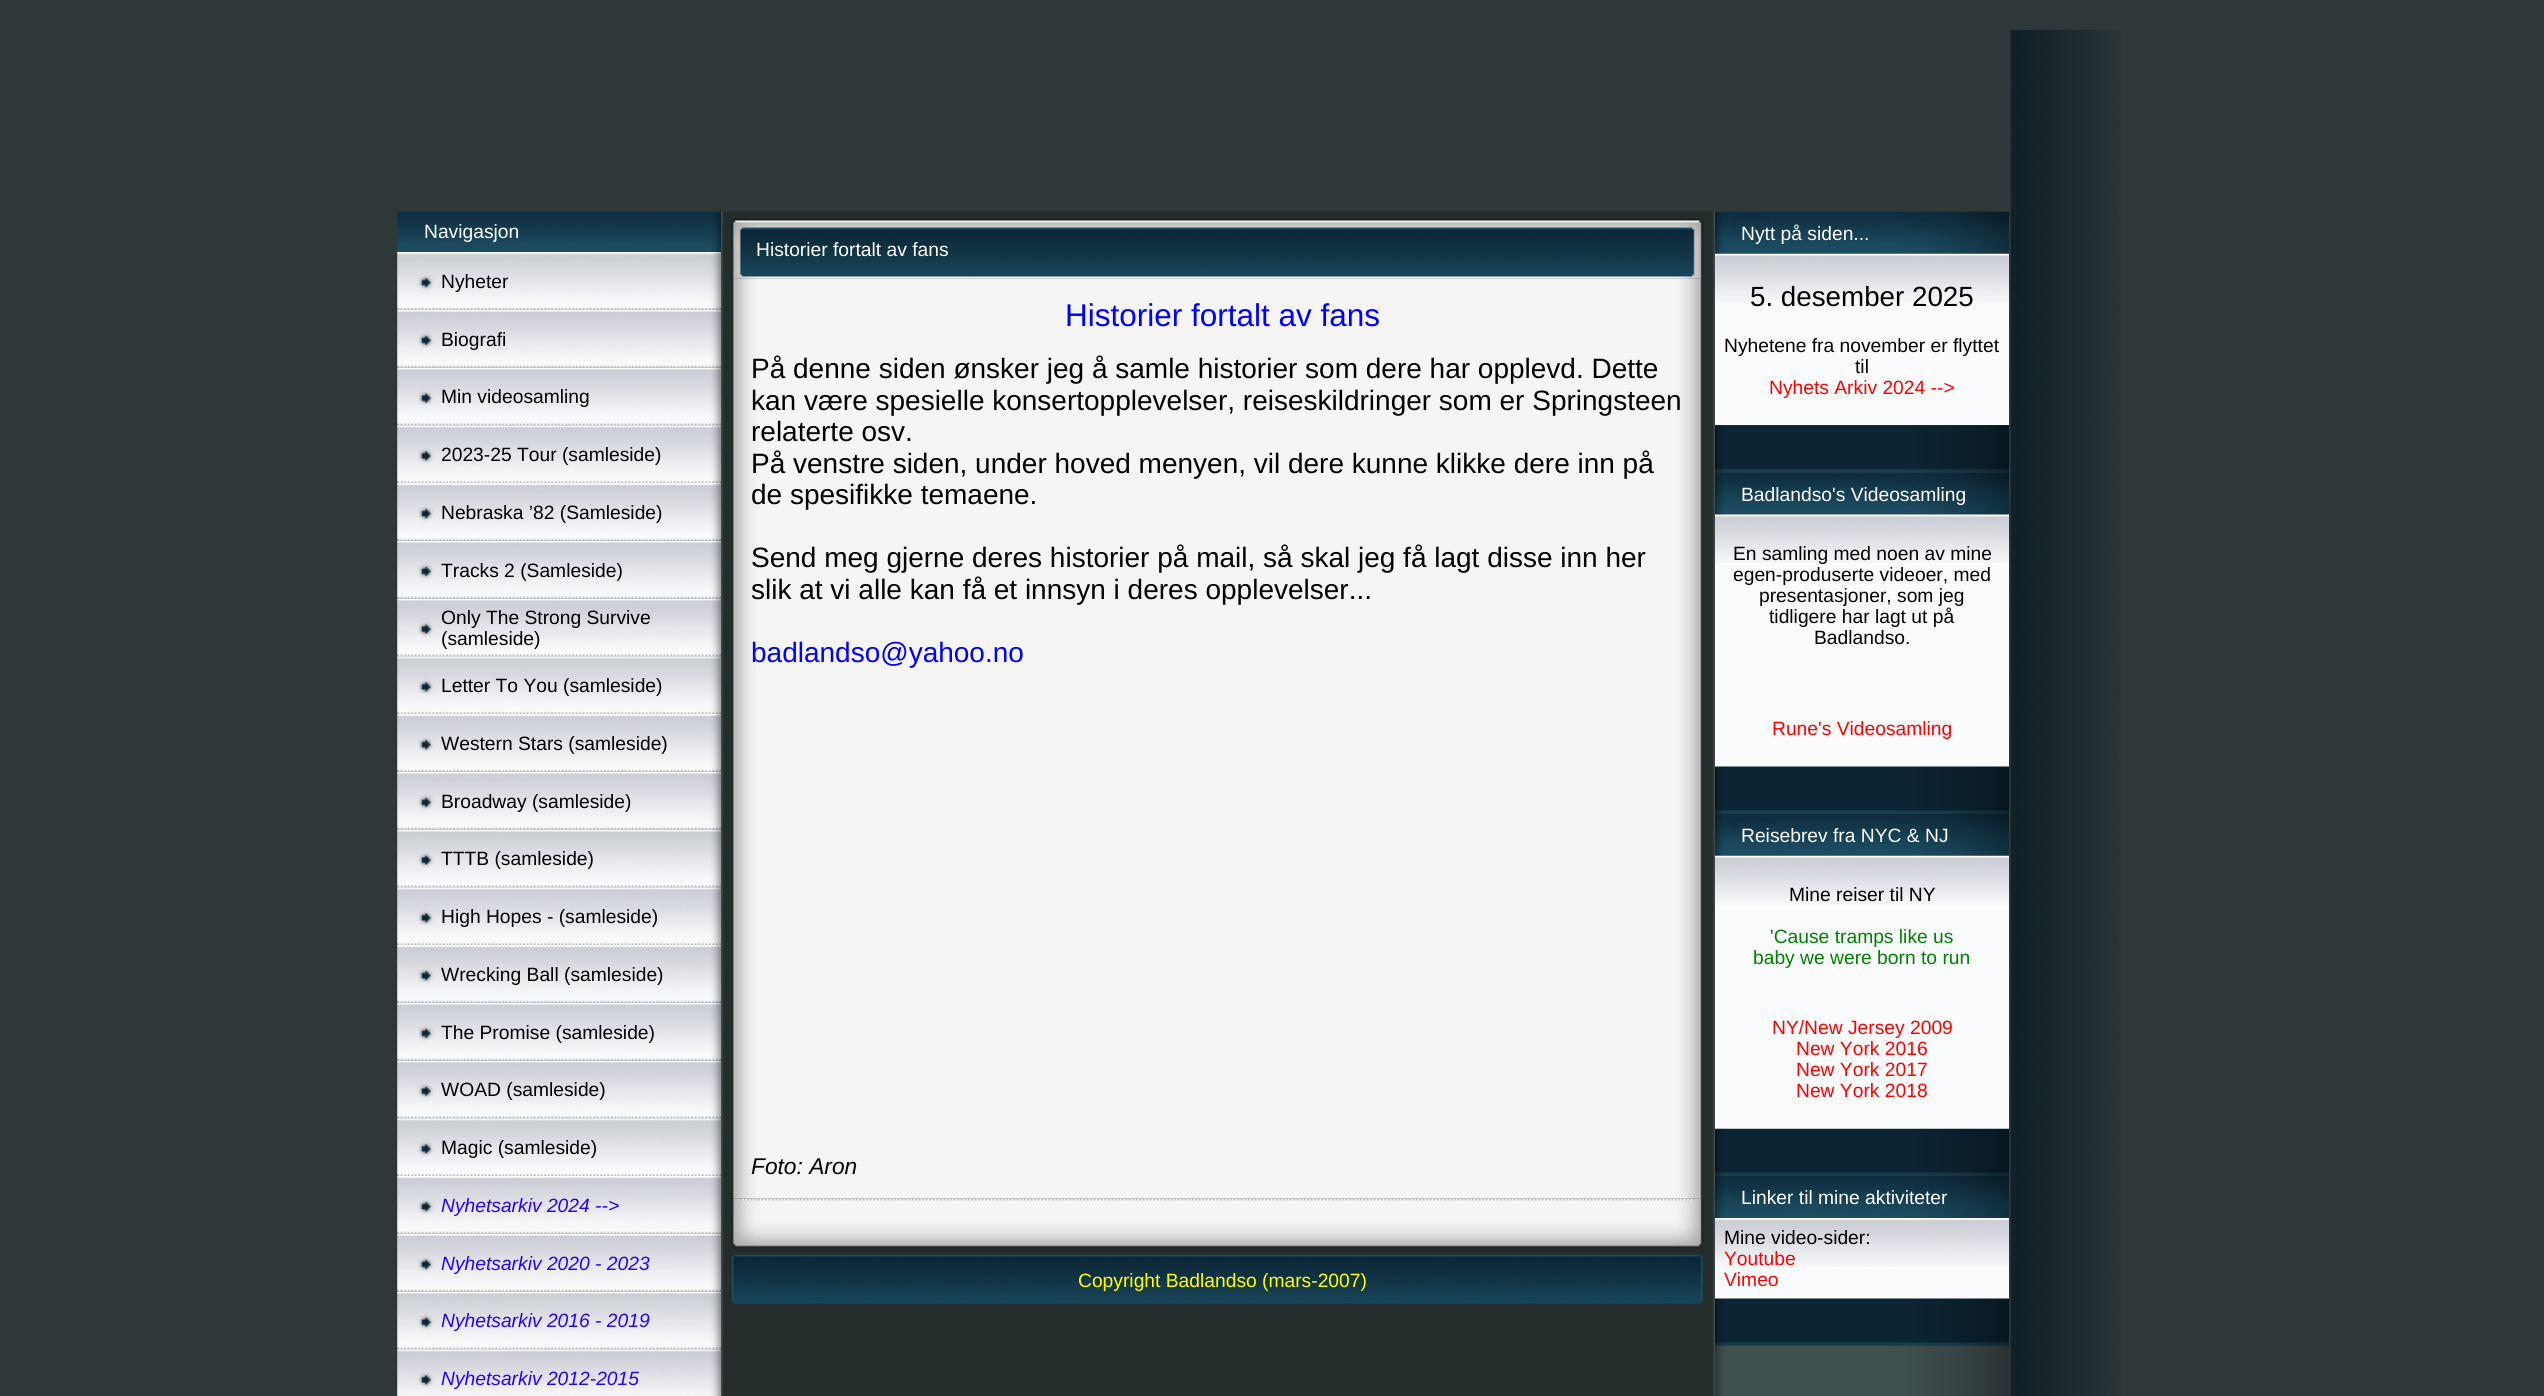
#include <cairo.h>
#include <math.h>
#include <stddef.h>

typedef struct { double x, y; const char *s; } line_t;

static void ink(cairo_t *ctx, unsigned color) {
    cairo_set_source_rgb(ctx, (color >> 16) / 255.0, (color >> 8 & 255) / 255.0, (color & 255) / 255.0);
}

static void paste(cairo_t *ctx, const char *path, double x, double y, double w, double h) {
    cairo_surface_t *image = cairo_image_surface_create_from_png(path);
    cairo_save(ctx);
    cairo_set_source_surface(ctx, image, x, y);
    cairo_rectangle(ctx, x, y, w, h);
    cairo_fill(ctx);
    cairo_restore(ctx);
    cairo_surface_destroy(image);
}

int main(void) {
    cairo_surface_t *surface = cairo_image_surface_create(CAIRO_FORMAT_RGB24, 2544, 1396);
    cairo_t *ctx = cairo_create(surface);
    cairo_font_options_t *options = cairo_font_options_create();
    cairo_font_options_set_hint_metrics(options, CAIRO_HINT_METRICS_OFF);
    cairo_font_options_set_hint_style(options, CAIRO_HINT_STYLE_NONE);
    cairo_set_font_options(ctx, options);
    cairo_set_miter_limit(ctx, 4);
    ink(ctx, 0x2E3839);
    cairo_paint(ctx);
    paste(ctx, "media/1.png", 397, 211, 324, 1185);
    paste(ctx, "media/2.png", 397, 211, 324, 41);
    cairo_select_font_face(ctx, "Liberation Sans", CAIRO_FONT_SLANT_NORMAL, CAIRO_FONT_WEIGHT_NORMAL);
    cairo_set_font_size(ctx, 19.25);
    ink(ctx, 0xFFFFFF);
    cairo_move_to(ctx, 424, 238);
    cairo_show_text(ctx, "Navigasjon");
    paste(ctx, "media/3.png", 397, 252, 324, 58);
    ink(ctx, 0x000000);
    cairo_move_to(ctx, 441, 288);
    cairo_show_text(ctx, "Nyheter");
    paste(ctx, "media/4.png", 397, 309, 324, 59);
    cairo_move_to(ctx, 441, 346);
    cairo_show_text(ctx, "Biografi");
    paste(ctx, "media/5.png", 397, 367, 324, 59);
    cairo_move_to(ctx, 441, 403);
    cairo_show_text(ctx, "Min videosamling");
    paste(ctx, "media/6.png", 397, 425, 324, 58);
    cairo_move_to(ctx, 441, 461);
    cairo_show_text(ctx, "2023-25 Tour (samleside)");
    paste(ctx, "media/3.png", 397, 483, 324, 58);
    cairo_move_to(ctx, 441, 519);
    cairo_show_text(ctx, "Nebraska ’82 (Samleside)");
    paste(ctx, "media/4.png", 397, 540, 324, 59);
    cairo_move_to(ctx, 441, 577);
    cairo_show_text(ctx, "Tracks 2 (Samleside)");
    paste(ctx, "media/5.png", 397, 598, 324, 59);
    cairo_move_to(ctx, 441, 624);
    cairo_show_text(ctx, "Only The Strong Survive");
    cairo_move_to(ctx, 441, 645);
    cairo_show_text(ctx, "(samleside)");
    paste(ctx, "media/6.png", 397, 656, 324, 58);
    cairo_move_to(ctx, 441, 692);
    cairo_show_text(ctx, "Letter To You (samleside)");
    paste(ctx, "media/3.png", 397, 714, 324, 58);
    cairo_move_to(ctx, 441, 750);
    cairo_show_text(ctx, "Western Stars (samleside)");
    paste(ctx, "media/4.png", 397, 771, 324, 59);
    cairo_move_to(ctx, 441, 808);
    cairo_show_text(ctx, "Broadway (samleside)");
    paste(ctx, "media/5.png", 397, 829, 324, 59);
    cairo_move_to(ctx, 441, 865);
    cairo_show_text(ctx, "TTTB (samleside)");
    paste(ctx, "media/6.png", 397, 887, 324, 58);
    cairo_move_to(ctx, 441, 923);
    cairo_show_text(ctx, "High Hopes - (samleside)");
    paste(ctx, "media/3.png", 397, 945, 324, 58);
    cairo_move_to(ctx, 441, 981);
    cairo_show_text(ctx, "Wrecking Ball (samleside)");
    paste(ctx, "media/4.png", 397, 1002, 324, 59);
    cairo_move_to(ctx, 441, 1039);
    cairo_show_text(ctx, "The Promise (samleside)");
    paste(ctx, "media/5.png", 397, 1060, 324, 59);
    cairo_move_to(ctx, 441, 1096);
    cairo_show_text(ctx, "WOAD (samleside)");
    paste(ctx, "media/6.png", 397, 1118, 324, 58);
    cairo_move_to(ctx, 441, 1154);
    cairo_show_text(ctx, "Magic (samleside)");
    paste(ctx, "media/3.png", 397, 1176, 324, 58);
    cairo_select_font_face(ctx, "Liberation Sans", CAIRO_FONT_SLANT_ITALIC, CAIRO_FONT_WEIGHT_NORMAL);
    ink(ctx, 0x2A00FF);
    cairo_move_to(ctx, 441, 1212);
    cairo_show_text(ctx, "Nyhetsarkiv 2024 -->");
    paste(ctx, "media/4.png", 397, 1233, 324, 59);
    cairo_move_to(ctx, 441, 1270);
    cairo_show_text(ctx, "Nyhetsarkiv 2020 - 2023");
    paste(ctx, "media/5.png", 397, 1291, 324, 59);
    cairo_move_to(ctx, 441, 1327);
    cairo_show_text(ctx, "Nyhetsarkiv 2016 - 2019");
    paste(ctx, "media/7.png", 397, 1349, 324, 47);
    cairo_move_to(ctx, 441, 1385);
    cairo_show_text(ctx, "Nyhetsarkiv 2012-2015");
    paste(ctx, "media/8.png", 721, 211, 994, 1185);
    paste(ctx, "media/9.png", 731, 218, 973, 61);
    cairo_select_font_face(ctx, "Liberation Sans", CAIRO_FONT_SLANT_NORMAL, CAIRO_FONT_WEIGHT_NORMAL);
    ink(ctx, 0xFFFFFF);
    cairo_move_to(ctx, 756, 256);
    cairo_show_text(ctx, "Historier fortalt av fans");
    paste(ctx, "media/10.png", 731, 278, 972, 921);
    cairo_set_font_size(ctx, 31.5);
    ink(ctx, 0x0000FF);
    cairo_move_to(ctx, 1065, 326);
    cairo_show_text(ctx, "Historier fortalt av fans");
    cairo_set_font_size(ctx, 28);
    ink(ctx, 0x000000);
    {
        static const line_t items[] = {
            {751, 378, "På denne siden ønsker jeg å samle historier som dere har opplevd. Dette"},
            {751, 410, "kan være spesielle konsertopplevelser, reiseskildringer som er Springsteen"},
            {751, 441, "relaterte osv."},
            {751, 473, "På venstre siden, under hoved menyen, vil dere kunne klikke dere inn på"},
            {751, 504, "de spesifikke temaene."},
            {751, 567, "Send meg gjerne deres historier på mail, så skal jeg få lagt disse inn her"},
            {751, 599, "slik at vi alle kan få et innsyn i deres opplevelser..."},
        };
        for (size_t i = 0; i < sizeof items / sizeof *items; i++) {
            cairo_move_to(ctx, items[i].x, items[i].y);
            cairo_show_text(ctx, items[i].s);
        }
    }
    ink(ctx, 0x0000FF);
    cairo_move_to(ctx, 751, 662);
    cairo_show_text(ctx, "badlandso@yahoo.no");
    cairo_select_font_face(ctx, "Liberation Sans", CAIRO_FONT_SLANT_ITALIC, CAIRO_FONT_WEIGHT_NORMAL);
    cairo_set_font_size(ctx, 22.75);
    ink(ctx, 0x000000);
    cairo_move_to(ctx, 751, 1174);
    cairo_show_text(ctx, "Foto: Aron");
    paste(ctx, "media/11.png", 731, 1198, 973, 51);
    paste(ctx, "media/12.png", 731, 1254, 973, 51);
    cairo_select_font_face(ctx, "Liberation Sans", CAIRO_FONT_SLANT_NORMAL, CAIRO_FONT_WEIGHT_NORMAL);
    cairo_set_font_size(ctx, 19.25);
    ink(ctx, 0xFFFF00);
    cairo_move_to(ctx, 1078, 1287);
    cairo_show_text(ctx, "Copyright Badlandso (mars-2007)");
    paste(ctx, "media/13.png", 1717, 211, 292, 1185);
    paste(ctx, "media/14.png", 1715, 211, 294, 43);
    ink(ctx, 0xFFFFFF);
    cairo_move_to(ctx, 1741, 240);
    cairo_show_text(ctx, "Nytt på siden...");
    ink(ctx, 0xFAFBFC);
    cairo_rectangle(ctx, 1715, 303, 294, 122);
    cairo_fill(ctx);
    paste(ctx, "media/15.png", 1715, 253, 294, 50);
    cairo_set_font_size(ctx, 27.75);
    ink(ctx, 0x000000);
    cairo_move_to(ctx, 1750, 306);
    cairo_show_text(ctx, "5. desember 2025");
    cairo_set_font_size(ctx, 19.25);
    cairo_move_to(ctx, 1724, 352);
    cairo_show_text(ctx, "Nyhetene fra november er flyttet");
    cairo_move_to(ctx, 1855, 373);
    cairo_show_text(ctx, "til");
    ink(ctx, 0xFF0000);
    cairo_move_to(ctx, 1769, 394);
    cairo_show_text(ctx, "Nyhets Arkiv 2024 -->");
    paste(ctx, "media/16.png", 1715, 425, 294, 48);
    paste(ctx, "media/17.png", 1715, 472, 294, 43);
    ink(ctx, 0xFFFFFF);
    cairo_move_to(ctx, 1741, 501);
    cairo_show_text(ctx, "Badlandso's Videosamling");
    ink(ctx, 0xFAFBFC);
    cairo_rectangle(ctx, 1715, 563, 294, 204);
    cairo_fill(ctx);
    paste(ctx, "media/18.png", 1715, 514, 294, 49);
    ink(ctx, 0x000000);
    {
        static const line_t items[] = {
            {1733, 560, "En samling med noen av mine"},
            {1733, 581, "egen-produserte videoer, med"},
            {1759, 602, "presentasjoner, som jeg"},
            {1769, 623, "tidligere har lagt ut på"},
            {1814, 644, "Badlandso."},
        };
        for (size_t i = 0; i < sizeof items / sizeof *items; i++) {
            cairo_move_to(ctx, items[i].x, items[i].y);
            cairo_show_text(ctx, items[i].s);
        }
    }
    ink(ctx, 0xFF0000);
    cairo_move_to(ctx, 1772, 735);
    cairo_show_text(ctx, "Rune's Videosamling");
    paste(ctx, "media/19.png", 1715, 766, 294, 48);
    paste(ctx, "media/20.png", 1715, 813, 294, 43);
    ink(ctx, 0xFFFFFF);
    cairo_move_to(ctx, 1741, 842);
    cairo_show_text(ctx, "Reisebrev fra NYC & NJ");
    ink(ctx, 0xFAFBFC);
    cairo_rectangle(ctx, 1715, 905, 294, 224);
    cairo_fill(ctx);
    paste(ctx, "media/15.png", 1715, 855, 294, 50);
    ink(ctx, 0x000000);
    cairo_move_to(ctx, 1789, 901);
    cairo_show_text(ctx, "Mine reiser til NY");
    ink(ctx, 0x008000);
    cairo_move_to(ctx, 1770, 943);
    cairo_show_text(ctx, "'Cause tramps like us");
    cairo_move_to(ctx, 1753, 964);
    cairo_show_text(ctx, "baby we were born to run");
    ink(ctx, 0xFF0000);
    {
        static const line_t items[] = {
            {1772, 1034, "NY/New Jersey 2009"},
            {1796, 1055, "New York 2016"},
            {1796, 1076, "New York 2017"},
            {1796, 1097, "New York 2018"},
        };
        for (size_t i = 0; i < sizeof items / sizeof *items; i++) {
            cairo_move_to(ctx, items[i].x, items[i].y);
            cairo_show_text(ctx, items[i].s);
        }
    }
    paste(ctx, "media/21.png", 1715, 1128, 294, 48);
    paste(ctx, "media/22.png", 1715, 1176, 294, 42);
    ink(ctx, 0xFFFFFF);
    cairo_move_to(ctx, 1741, 1204);
    cairo_show_text(ctx, "Linker til mine aktiviteter");
    ink(ctx, 0xFAFBFC);
    cairo_rectangle(ctx, 1715, 1267, 294, 32);
    cairo_fill(ctx);
    paste(ctx, "media/23.png", 1715, 1218, 294, 49);
    ink(ctx, 0x000000);
    cairo_move_to(ctx, 1724, 1244);
    cairo_show_text(ctx, "Mine video-sider:");
    ink(ctx, 0xFF0000);
    cairo_move_to(ctx, 1724, 1265);
    cairo_show_text(ctx, "Youtube");
    cairo_move_to(ctx, 1724, 1286);
    cairo_show_text(ctx, "Vimeo");
    paste(ctx, "media/24.png", 1715, 1298, 294, 48);
    paste(ctx, "media/25.png", 2010, 29, 111, 1367);
    cairo_surface_write_to_png(surface, "image.png");
    cairo_font_options_destroy(options);
    cairo_destroy(ctx);
    cairo_surface_destroy(surface);
    return 0;
}
